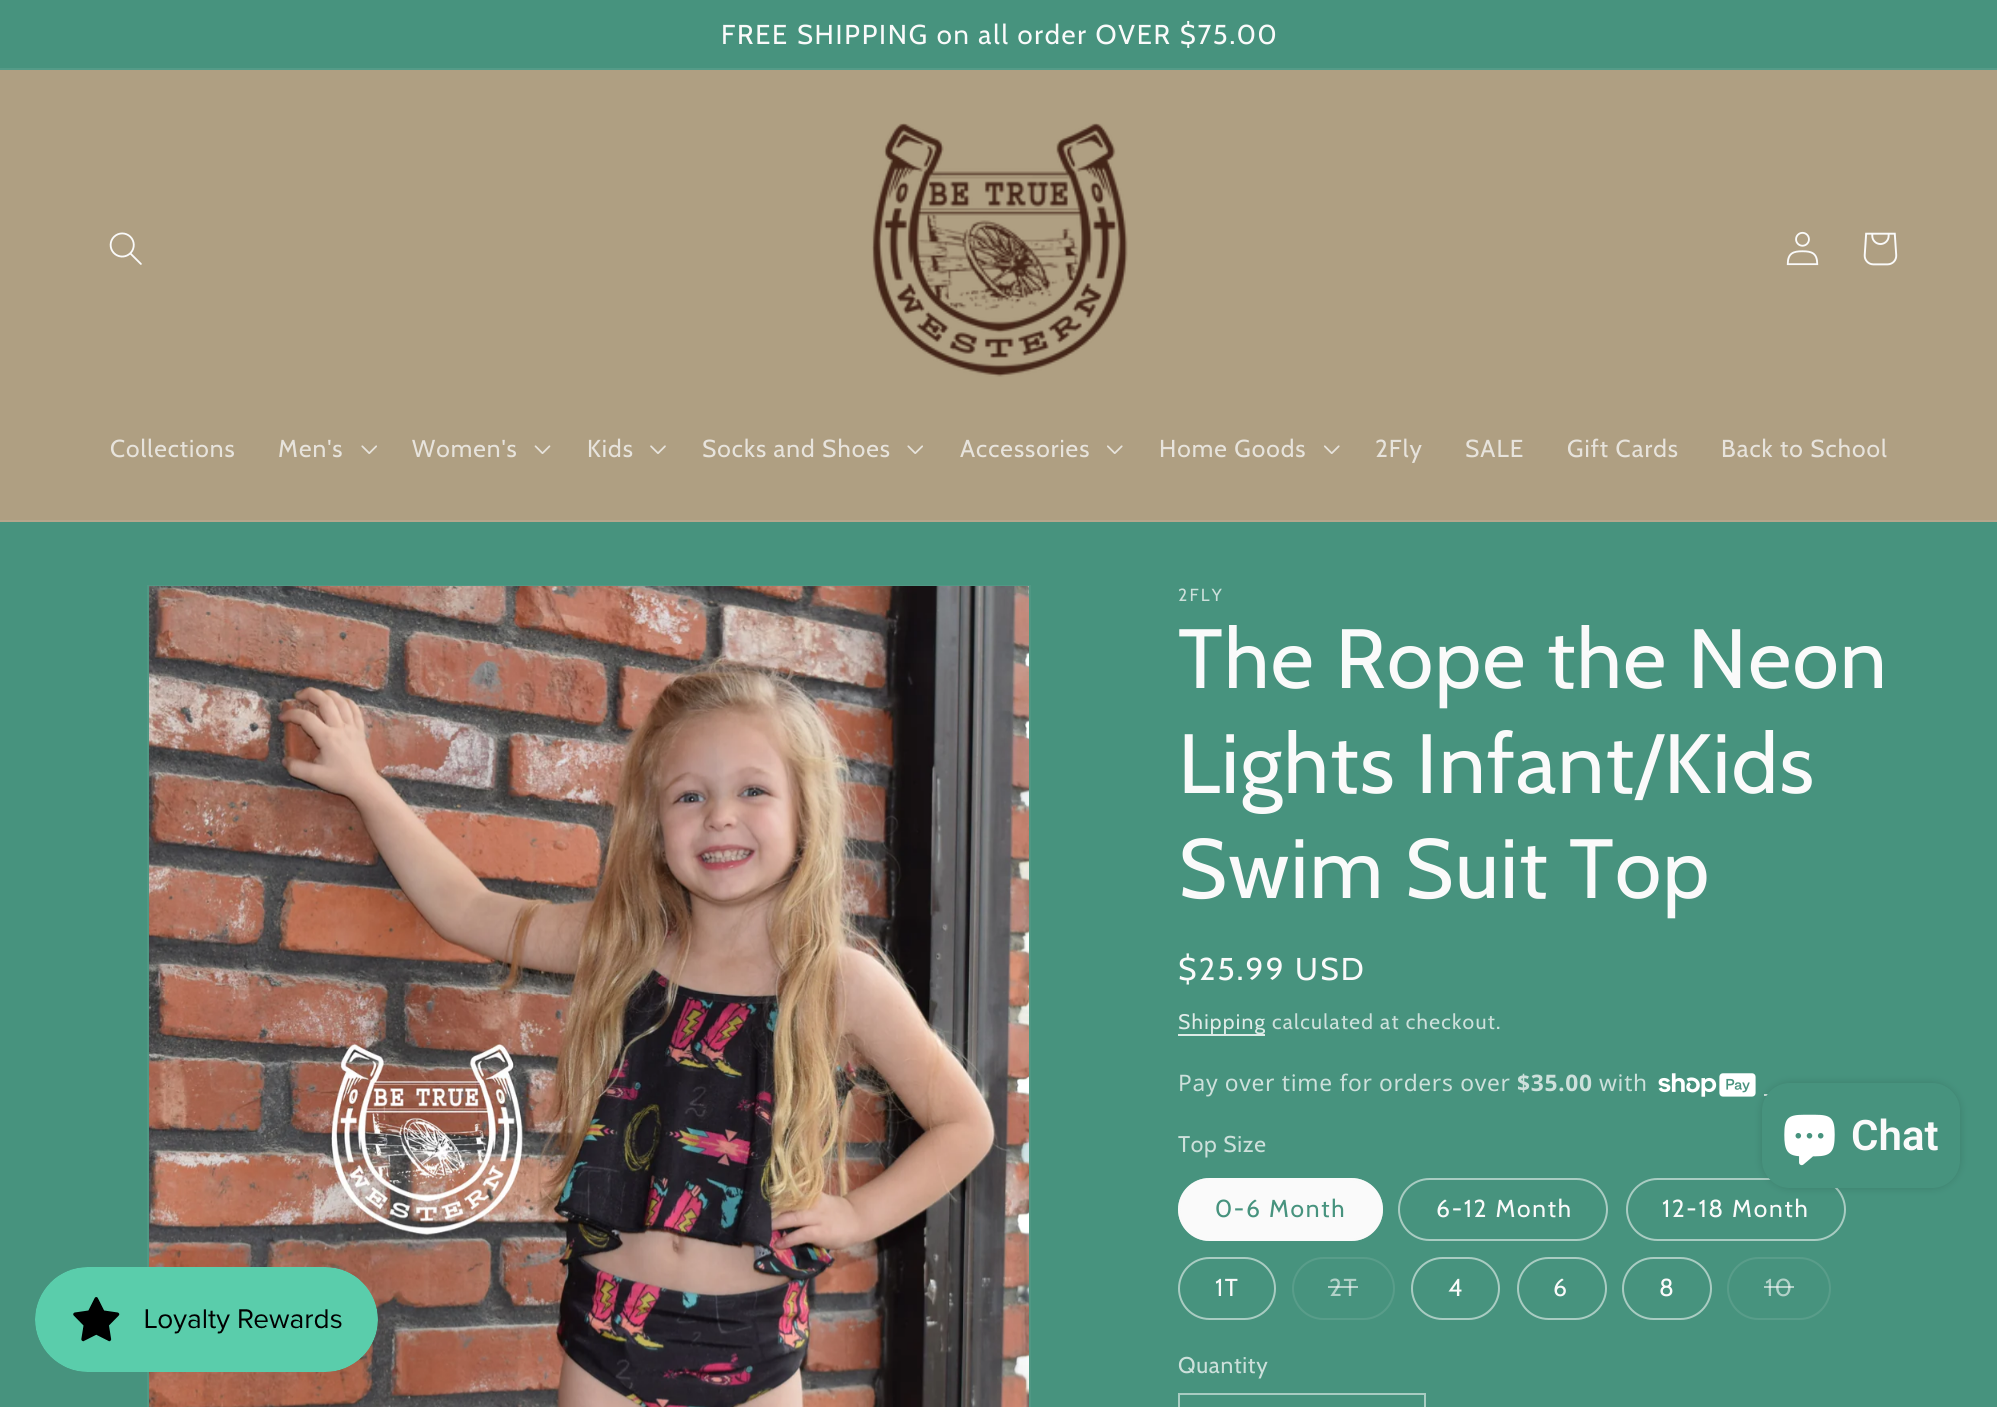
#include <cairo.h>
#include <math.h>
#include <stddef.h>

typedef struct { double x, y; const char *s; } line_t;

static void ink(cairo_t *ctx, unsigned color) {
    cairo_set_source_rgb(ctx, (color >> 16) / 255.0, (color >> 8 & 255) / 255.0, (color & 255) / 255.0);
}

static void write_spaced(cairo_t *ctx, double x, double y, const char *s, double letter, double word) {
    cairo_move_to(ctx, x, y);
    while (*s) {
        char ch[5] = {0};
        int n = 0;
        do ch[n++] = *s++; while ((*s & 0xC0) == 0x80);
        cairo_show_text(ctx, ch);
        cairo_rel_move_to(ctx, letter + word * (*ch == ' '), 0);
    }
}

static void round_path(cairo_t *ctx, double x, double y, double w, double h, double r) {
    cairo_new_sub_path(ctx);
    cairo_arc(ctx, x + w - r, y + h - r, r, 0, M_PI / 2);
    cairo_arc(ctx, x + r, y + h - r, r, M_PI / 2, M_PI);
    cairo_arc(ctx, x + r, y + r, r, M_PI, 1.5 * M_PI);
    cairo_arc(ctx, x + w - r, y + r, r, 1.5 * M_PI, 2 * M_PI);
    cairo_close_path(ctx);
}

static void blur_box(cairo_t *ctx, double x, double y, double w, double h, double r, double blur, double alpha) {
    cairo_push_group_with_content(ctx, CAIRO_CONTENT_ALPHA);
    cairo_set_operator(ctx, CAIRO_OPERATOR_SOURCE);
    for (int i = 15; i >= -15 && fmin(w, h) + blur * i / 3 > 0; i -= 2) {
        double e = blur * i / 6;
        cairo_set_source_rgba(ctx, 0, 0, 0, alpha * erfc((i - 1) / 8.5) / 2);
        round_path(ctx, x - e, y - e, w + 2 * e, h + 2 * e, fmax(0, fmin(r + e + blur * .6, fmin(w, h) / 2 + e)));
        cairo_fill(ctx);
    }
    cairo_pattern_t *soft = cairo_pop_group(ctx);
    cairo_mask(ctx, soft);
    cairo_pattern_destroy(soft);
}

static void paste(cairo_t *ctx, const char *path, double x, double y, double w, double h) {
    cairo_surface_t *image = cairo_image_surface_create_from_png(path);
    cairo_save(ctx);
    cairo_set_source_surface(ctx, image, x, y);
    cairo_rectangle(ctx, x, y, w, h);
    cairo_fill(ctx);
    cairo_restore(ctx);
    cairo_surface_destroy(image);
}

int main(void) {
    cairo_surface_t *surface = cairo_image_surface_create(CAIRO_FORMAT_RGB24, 1997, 1407);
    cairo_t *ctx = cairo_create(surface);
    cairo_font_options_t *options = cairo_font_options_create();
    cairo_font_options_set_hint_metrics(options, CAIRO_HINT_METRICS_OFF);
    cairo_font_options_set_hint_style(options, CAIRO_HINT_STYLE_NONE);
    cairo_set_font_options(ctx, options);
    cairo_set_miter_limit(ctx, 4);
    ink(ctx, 0x47937E);
    cairo_paint(ctx);
    ink(ctx, 0x559B88);
    cairo_rectangle(ctx, 0, 68, 1997, 2);
    cairo_fill(ctx);
    cairo_select_font_face(ctx, "Cabin", CAIRO_FONT_SLANT_NORMAL, CAIRO_FONT_WEIGHT_NORMAL);
    cairo_set_font_size(ctx, 27.3);
    ink(ctx, 0xFAFAFA);
    write_spaced(ctx, 721, 44, "FREE SHIPPING on all order OVER $75.00", 1.75, 0);
    ink(ctx, 0xAF9F82);
    cairo_rectangle(ctx, 0, 70, 1997, 450);
    cairo_fill(ctx);
    ink(ctx, 0xB5A68C);
    cairo_rectangle(ctx, 0, 520, 1997, 2);
    cairo_fill(ctx);
    paste(ctx, "media/1.png", 109, 232, 33, 33);
    paste(ctx, "media/2.png", 872, 123, 256, 254);
    paste(ctx, "media/3.png", 1786, 231, 33, 35);
    paste(ctx, "media/4.png", 1863, 232, 35, 34);
    cairo_set_font_size(ctx, 24.5);
    ink(ctx, 0xE7E3DC);
    write_spaced(ctx, 110, 457, "Collections", 1, 0);
    write_spaced(ctx, 278, 457, "Men's", 1, 0);
    paste(ctx, "media/5.png", 361, 445, 16, 9);
    write_spaced(ctx, 412, 457, "Women's", 1, 0);
    paste(ctx, "media/6.png", 534, 445, 17, 9);
    write_spaced(ctx, 587, 457, "Kids", 1, 0);
    paste(ctx, "media/7.png", 650, 445, 16, 9);
    write_spaced(ctx, 702, 457, "Socks and Shoes", 1, 0);
    paste(ctx, "media/5.png", 907, 445, 16, 9);
    write_spaced(ctx, 960, 457, "Accessories", 1, 0);
    paste(ctx, "media/8.png", 1107, 445, 16, 9);
    write_spaced(ctx, 1159, 457, "Home Goods", 1, 0);
    paste(ctx, "media/8.png", 1324, 445, 16, 9);
    {
        static const line_t items[] = {
            {1375, 457, "2Fly"},
            {1465, 457, "SALE"},
            {1567, 457, "Gift Cards"},
            {1721, 457, "Back to School"},
        };
        for (size_t i = 0; i < sizeof items / sizeof *items; i++) {
            write_spaced(ctx, items[i].x, items[i].y, items[i].s, 1, 0);
        }
    }
    cairo_rectangle(ctx, 148, 586, 882, 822);
    ink(ctx, 0x509884);
    cairo_stroke(ctx);
    paste(ctx, "media/9.png", 149, 586, 880, 821);
    cairo_set_font_size(ctx, 17.5);
    ink(ctx, 0xCDE0DB);
    write_spaced(ctx, 1178, 601, "2FLY", 2.25, 0);
    cairo_set_font_size(ctx, 84);
    ink(ctx, 0xFAFAFA);
    {
        static const line_t items[] = {
            {1178, 688, "The Rope the Neon"},
            {1178, 793, "Lights Infant/Kids"},
            {1178, 898, "Swim Suit Top"},
        };
        for (size_t i = 0; i < sizeof items / sizeof *items; i++) {
            write_spaced(ctx, items[i].x, items[i].y, items[i].s, 1.25, 0);
        }
    }
    cairo_set_font_size(ctx, 31.5);
    write_spaced(ctx, 1178, 980, "$25.99 USD", 2.25, 0);
    ink(ctx, 0xDFEBE7);
    cairo_rectangle(ctx, 1178, 1034, 87, 2);
    cairo_fill(ctx);
    cairo_set_font_size(ctx, 21);
    ink(ctx, 0xDFEBE8);
    write_spaced(ctx, 1178, 1029, "Shipping", 1.25, 0);
    ink(ctx, 0xCDE0DB);
    write_spaced(ctx, 1272, 1029, "calculated at checkout.", 1.25, 0);
    cairo_select_font_face(ctx, "Noto Sans", CAIRO_FONT_SLANT_NORMAL, CAIRO_FONT_WEIGHT_NORMAL);
    cairo_set_font_size(ctx, 22.75);
    write_spaced(ctx, 1178, 1091, "Pay over time for orders over", 0.7, 0);
    cairo_select_font_face(ctx, "Noto Sans", CAIRO_FONT_SLANT_NORMAL, CAIRO_FONT_WEIGHT_BOLD);
    write_spaced(ctx, 1517, 1091, "$35.00", 0.7, 0);
    cairo_select_font_face(ctx, "Noto Sans", CAIRO_FONT_SLANT_NORMAL, CAIRO_FONT_WEIGHT_NORMAL);
    write_spaced(ctx, 1599, 1091, "with", 0.7, 0);
    paste(ctx, "media/10.png", 1658, 1073, 98, 24);
    cairo_rectangle(ctx, 1764, 1094, 4, 2);
    cairo_fill(ctx);
    cairo_select_font_face(ctx, "Cabin", CAIRO_FONT_SLANT_NORMAL, CAIRO_FONT_WEIGHT_NORMAL);
    write_spaced(ctx, 1178, 1152, "Top Size", 0.7, 0);
    ink(ctx, 0xFAFAFA);
    round_path(ctx, 1178, 1178, 205, 63, 31.5);
    cairo_fill(ctx);
    round_path(ctx, 1179, 1179, 203, 61, 30.5);
    cairo_set_source_rgba(ctx, 0.98, 0.98, 0.98, 0.55);
    cairo_stroke(ctx);
    cairo_set_font_size(ctx, 24.5);
    ink(ctx, 0x47937E);
    write_spaced(ctx, 1215, 1217, "0-6 Month", 1.75, 0);
    round_path(ctx, 1399, 1179, 208, 61, 30.5);
    ink(ctx, 0xA9CCC2);
    cairo_stroke(ctx);
    ink(ctx, 0xFAFAFA);
    write_spaced(ctx, 1436, 1217, "6-12 Month", 1.75, 0);
    round_path(ctx, 1627, 1179, 218, 61, 30.5);
    ink(ctx, 0xA9CCC2);
    cairo_stroke(ctx);
    ink(ctx, 0xFAFAFA);
    write_spaced(ctx, 1662, 1217, "12-18 Month", 1.75, 0);
    round_path(ctx, 1179, 1258, 96, 61, 30.5);
    ink(ctx, 0xA9CCC2);
    cairo_stroke(ctx);
    ink(ctx, 0xFAFAFA);
    write_spaced(ctx, 1215, 1296, "1T", 1.75, 0);
    round_path(ctx, 1293, 1258, 101, 61, 30.5);
    ink(ctx, 0x599D8A);
    cairo_stroke(ctx);
    ink(ctx, 0xB2D1C8);
    write_spaced(ctx, 1329, 1296, "2T", 1.75, 0);
    cairo_set_source_rgba(ctx, 0.98, 0.98, 0.98, 0.6);
    cairo_rectangle(ctx, 1328, 1286, 30, 2);
    cairo_fill(ctx);
    round_path(ctx, 1412, 1258, 87, 61, 30.5);
    ink(ctx, 0xA9CCC2);
    cairo_stroke(ctx);
    ink(ctx, 0xFAFAFA);
    write_spaced(ctx, 1448, 1296, "4", 1.75, 0);
    round_path(ctx, 1518, 1258, 88, 61, 30.5);
    ink(ctx, 0xA9CCC2);
    cairo_stroke(ctx);
    ink(ctx, 0xFAFAFA);
    write_spaced(ctx, 1553, 1296, "6", 1.75, 0);
    round_path(ctx, 1623, 1258, 88, 61, 30.5);
    ink(ctx, 0xA9CCC2);
    cairo_stroke(ctx);
    ink(ctx, 0xFAFAFA);
    write_spaced(ctx, 1659, 1296, "8", 1.75, 0);
    round_path(ctx, 1728, 1258, 102, 61, 30.5);
    ink(ctx, 0x599D8A);
    cairo_stroke(ctx);
    ink(ctx, 0xB2D1C8);
    write_spaced(ctx, 1765, 1296, "10", 1.75, 0);
    cairo_set_source_rgba(ctx, 0.98, 0.98, 0.98, 0.6);
    cairo_rectangle(ctx, 1764, 1286, 30, 2);
    cairo_fill(ctx);
    cairo_set_font_size(ctx, 22.75);
    ink(ctx, 0xCDE0DB);
    write_spaced(ctx, 1178, 1373, "Quantity", 0.7, 0);
    cairo_rectangle(ctx, 1179, 1394, 246, 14);
    ink(ctx, 0xA9CCC2);
    cairo_stroke(ctx);
    ink(ctx, 0x000000);
    blur_box(ctx, 1762, 1083, 198, 105, 28, 4.5, 0.15);
    ink(ctx, 0x47937E);
    round_path(ctx, 1762, 1083, 198, 105, 28);
    cairo_fill(ctx);
    paste(ctx, "media/11.png", 1784, 1114, 51, 52);
    cairo_select_font_face(ctx, "Roboto SemiBold", CAIRO_FONT_SLANT_NORMAL, CAIRO_FONT_WEIGHT_NORMAL);
    cairo_set_font_size(ctx, 42);
    ink(ctx, 0xFAFAFA);
    cairo_move_to(ctx, 1851, 1150);
    cairo_show_text(ctx, "Chat");
    paste(ctx, "media/12.png", 35, 1267, 343, 105);
    cairo_surface_write_to_png(surface, "image.png");
    cairo_font_options_destroy(options);
    cairo_destroy(ctx);
    cairo_surface_destroy(surface);
    return 0;
}
